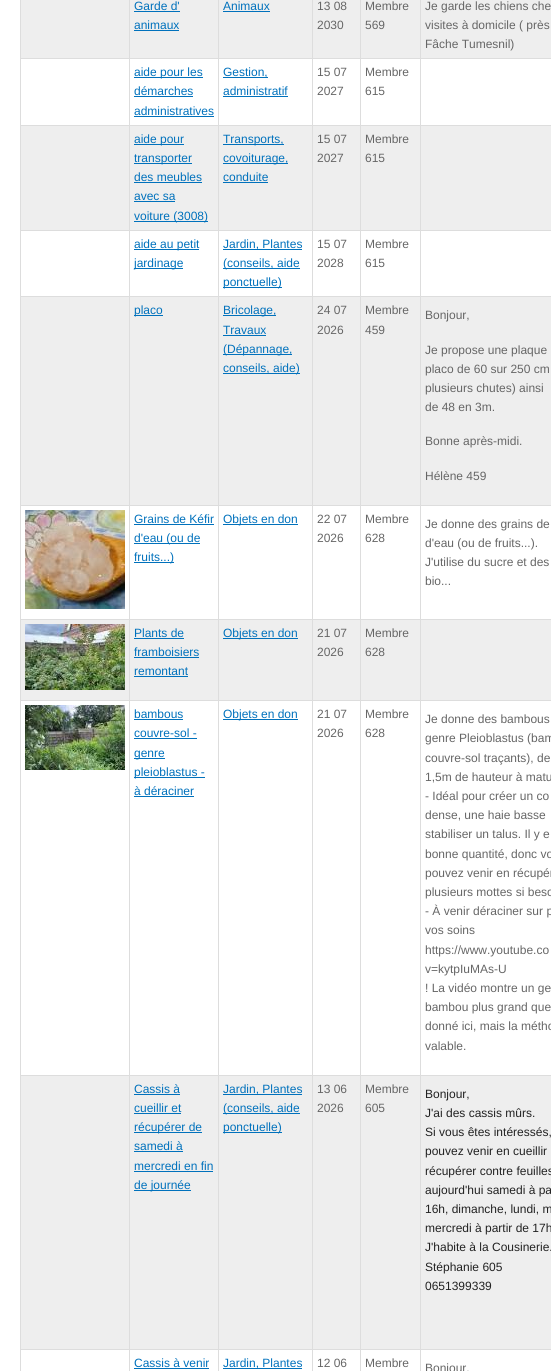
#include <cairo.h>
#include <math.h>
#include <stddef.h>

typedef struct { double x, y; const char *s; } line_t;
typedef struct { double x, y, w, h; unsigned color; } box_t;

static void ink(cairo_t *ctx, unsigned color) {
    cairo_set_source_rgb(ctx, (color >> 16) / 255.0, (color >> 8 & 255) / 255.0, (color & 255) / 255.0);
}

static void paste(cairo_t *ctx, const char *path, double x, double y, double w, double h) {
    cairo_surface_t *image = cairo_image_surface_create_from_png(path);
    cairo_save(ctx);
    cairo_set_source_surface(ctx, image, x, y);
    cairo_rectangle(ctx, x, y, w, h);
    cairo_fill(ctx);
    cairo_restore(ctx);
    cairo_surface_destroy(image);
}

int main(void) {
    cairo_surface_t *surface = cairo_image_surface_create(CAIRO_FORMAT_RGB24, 551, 1371);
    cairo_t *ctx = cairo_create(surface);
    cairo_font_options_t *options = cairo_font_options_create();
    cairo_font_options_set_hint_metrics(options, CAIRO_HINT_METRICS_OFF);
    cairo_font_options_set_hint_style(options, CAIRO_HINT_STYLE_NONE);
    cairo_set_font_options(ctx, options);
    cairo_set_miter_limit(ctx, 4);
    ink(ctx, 0xFFFFFF);
    cairo_paint(ctx);
    {
        static const box_t items[] = {
            {21, 0, 108, 58, 0xEEEEEE},
            {130, 0, 88, 58, 0xEEEEEE},
            {420, 58, 131, 1, 0xDDDDDD},
            {420, 125, 131, 1, 0xDDDDDD},
            {420, 230, 131, 1, 0xDDDDDD},
            {420, 296, 131, 1, 0xDDDDDD},
            {420, 505, 131, 1, 0xDDDDDD},
            {420, 619, 131, 1, 0xDDDDDD},
            {420, 700, 131, 1, 0xDDDDDD},
            {420, 1075, 131, 1, 0xDDDDDD},
            {420, 1349, 131, 1, 0xDDDDDD},
            {420, 1349, 1, 22, 0xDDDDDD},
            {360, 1349, 61, 1, 0xDDDDDD},
            {420, 1075, 1, 275, 0xDDDDDD},
            {360, 1075, 61, 1, 0xDDDDDD},
            {420, 700, 1, 376, 0xDDDDDD},
            {360, 700, 61, 1, 0xDDDDDD},
            {420, 619, 1, 82, 0xDDDDDD},
            {360, 619, 61, 1, 0xDDDDDD},
            {420, 505, 1, 115, 0xDDDDDD},
            {360, 505, 61, 1, 0xDDDDDD},
            {420, 296, 1, 210, 0xDDDDDD},
            {360, 296, 61, 1, 0xDDDDDD},
            {420, 230, 1, 67, 0xDDDDDD},
            {360, 230, 61, 1, 0xDDDDDD},
            {420, 125, 1, 106, 0xDDDDDD},
            {360, 125, 61, 1, 0xDDDDDD},
            {420, 58, 1, 68, 0xDDDDDD},
            {360, 58, 61, 1, 0xDDDDDD},
            {360, 1349, 1, 22, 0xDDDDDD},
            {312, 1349, 49, 1, 0xDDDDDD},
            {360, 1075, 1, 275, 0xDDDDDD},
            {312, 1075, 49, 1, 0xDDDDDD},
            {360, 700, 1, 376, 0xDDDDDD},
            {312, 700, 49, 1, 0xDDDDDD},
            {360, 619, 1, 82, 0xDDDDDD},
            {312, 619, 49, 1, 0xDDDDDD},
            {360, 505, 1, 115, 0xDDDDDD},
            {312, 505, 49, 1, 0xDDDDDD},
            {360, 296, 1, 210, 0xDDDDDD},
            {312, 296, 49, 1, 0xDDDDDD},
            {360, 230, 1, 67, 0xDDDDDD},
            {312, 230, 49, 1, 0xDDDDDD},
            {360, 125, 1, 106, 0xDDDDDD},
            {312, 125, 49, 1, 0xDDDDDD},
            {360, 58, 1, 68, 0xDDDDDD},
            {312, 58, 49, 1, 0xDDDDDD},
            {312, 1349, 1, 22, 0xDDDDDD},
            {218, 1349, 95, 1, 0xDDDDDD},
            {312, 1075, 1, 275, 0xDDDDDD},
            {218, 1075, 95, 1, 0xDDDDDD},
            {312, 700, 1, 376, 0xDDDDDD},
            {218, 700, 95, 1, 0xDDDDDD},
            {312, 619, 1, 82, 0xDDDDDD},
            {218, 619, 95, 1, 0xDDDDDD},
            {312, 505, 1, 115, 0xDDDDDD},
            {218, 505, 95, 1, 0xDDDDDD},
            {312, 296, 1, 210, 0xDDDDDD},
            {218, 296, 95, 1, 0xDDDDDD},
            {312, 230, 1, 67, 0xDDDDDD},
            {218, 230, 95, 1, 0xDDDDDD},
            {312, 125, 1, 106, 0xDDDDDD},
            {218, 125, 95, 1, 0xDDDDDD},
            {312, 58, 1, 68, 0xDDDDDD},
            {218, 58, 95, 1, 0xDDDDDD},
            {218, 1349, 1, 22, 0xDDDDDD},
            {129, 1349, 90, 1, 0xDDDDDD},
            {218, 1075, 1, 275, 0xDDDDDD},
            {129, 1075, 90, 1, 0xDDDDDD},
            {218, 700, 1, 376, 0xDDDDDD},
            {129, 700, 90, 1, 0xDDDDDD},
            {218, 619, 1, 82, 0xDDDDDD},
            {129, 619, 90, 1, 0xDDDDDD},
            {218, 505, 1, 115, 0xDDDDDD},
            {129, 505, 90, 1, 0xDDDDDD},
            {218, 296, 1, 210, 0xDDDDDD},
            {129, 296, 90, 1, 0xDDDDDD},
            {218, 230, 1, 67, 0xDDDDDD},
            {129, 230, 90, 1, 0xDDDDDD},
            {218, 125, 1, 106, 0xDDDDDD},
            {129, 125, 90, 1, 0xDDDDDD},
            {218, 58, 1, 68, 0xDDDDDD},
            {129, 58, 90, 1, 0xDDDDDD},
            {129, 1349, 1, 22, 0xDDDDDD},
            {20, 1349, 110, 1, 0xDDDDDD},
            {129, 1075, 1, 275, 0xDDDDDD},
            {20, 1075, 110, 1, 0xDDDDDD},
            {129, 700, 1, 376, 0xDDDDDD},
            {20, 700, 110, 1, 0xDDDDDD},
            {129, 619, 1, 82, 0xDDDDDD},
            {20, 619, 110, 1, 0xDDDDDD},
            {129, 505, 1, 115, 0xDDDDDD},
            {20, 505, 110, 1, 0xDDDDDD},
            {129, 296, 1, 210, 0xDDDDDD},
            {20, 296, 110, 1, 0xDDDDDD},
            {129, 230, 1, 67, 0xDDDDDD},
            {20, 230, 110, 1, 0xDDDDDD},
            {129, 125, 1, 106, 0xDDDDDD},
            {20, 125, 110, 1, 0xDDDDDD},
            {129, 58, 1, 68, 0xDDDDDD},
            {20, 58, 110, 1, 0xDDDDDD},
            {129, 0, 1, 59, 0xDDDDDD},
        };
        for (size_t i = 0; i < sizeof items / sizeof *items; i++) {
            ink(ctx, items[i].color);
            cairo_rectangle(ctx, items[i].x, items[i].y, items[i].w, items[i].h);
            cairo_fill(ctx);
        }
    }
    cairo_select_font_face(ctx, "Liberation Sans", CAIRO_FONT_SLANT_NORMAL, CAIRO_FONT_WEIGHT_NORMAL);
    cairo_set_font_size(ctx, 12);
    ink(ctx, 0x0071BC);
    cairo_move_to(ctx, 134, 10);
    cairo_show_text(ctx, "Garde d'");
    cairo_rectangle(ctx, 134, 11, 46, 1);
    cairo_fill(ctx);
    cairo_move_to(ctx, 134, 29);
    cairo_show_text(ctx, "animaux");
    {
        static const box_t items[] = {
            {134, 30, 45, 1, 0x0071BC},
            {219, 0, 93, 58, 0xEEEEEE},
            {218, 0, 1, 59, 0xDDDDDD},
        };
        for (size_t i = 0; i < sizeof items / sizeof *items; i++) {
            ink(ctx, items[i].color);
            cairo_rectangle(ctx, items[i].x, items[i].y, items[i].w, items[i].h);
            cairo_fill(ctx);
        }
    }
    ink(ctx, 0x0071BC);
    cairo_move_to(ctx, 223, 10);
    cairo_show_text(ctx, "Animaux");
    {
        static const box_t items[] = {
            {223, 11, 47, 1, 0x0071BC},
            {313, 0, 47, 58, 0xEEEEEE},
            {312, 0, 1, 59, 0xDDDDDD},
        };
        for (size_t i = 0; i < sizeof items / sizeof *items; i++) {
            ink(ctx, items[i].color);
            cairo_rectangle(ctx, items[i].x, items[i].y, items[i].w, items[i].h);
            cairo_fill(ctx);
        }
    }
    ink(ctx, 0x666666);
    cairo_move_to(ctx, 317, 10);
    cairo_show_text(ctx, "13 08");
    cairo_move_to(ctx, 317, 29);
    cairo_show_text(ctx, "2030");
    ink(ctx, 0xEEEEEE);
    cairo_rectangle(ctx, 361, 0, 59, 58);
    cairo_fill(ctx);
    ink(ctx, 0xDDDDDD);
    cairo_rectangle(ctx, 360, 0, 1, 59);
    cairo_fill(ctx);
    ink(ctx, 0x666666);
    cairo_move_to(ctx, 365, 10);
    cairo_show_text(ctx, "Membre");
    cairo_move_to(ctx, 365, 29);
    cairo_show_text(ctx, "569");
    ink(ctx, 0xEEEEEE);
    cairo_rectangle(ctx, 421, 0, 130, 58);
    cairo_fill(ctx);
    ink(ctx, 0xDDDDDD);
    cairo_rectangle(ctx, 420, 0, 1, 59);
    cairo_fill(ctx);
    ink(ctx, 0x666666);
    {
        static const line_t items[] = {
            {425, 10, "Je garde les chiens che"},
            {425, 29, "visites à domicile ( près"},
            {425, 48, "Fâche Tumesnil)"},
        };
        for (size_t i = 0; i < sizeof items / sizeof *items; i++) {
            cairo_move_to(ctx, items[i].x, items[i].y);
            cairo_show_text(ctx, items[i].s);
        }
    }
    {
        static const box_t items[] = {
            {20, 1349, 1, 22, 0xDDDDDD},
            {20, 1075, 1, 275, 0xDDDDDD},
            {20, 700, 1, 376, 0xDDDDDD},
            {20, 619, 1, 82, 0xDDDDDD},
            {20, 505, 1, 115, 0xDDDDDD},
            {20, 296, 1, 210, 0xDDDDDD},
            {20, 230, 1, 67, 0xDDDDDD},
            {20, 125, 1, 106, 0xDDDDDD},
            {20, 0, 1, 126, 0xDDDDDD},
            {134, 77, 69, 1, 0x0071BC},
        };
        for (size_t i = 0; i < sizeof items / sizeof *items; i++) {
            ink(ctx, items[i].color);
            cairo_rectangle(ctx, items[i].x, items[i].y, items[i].w, items[i].h);
            cairo_fill(ctx);
        }
    }
    cairo_move_to(ctx, 134, 76);
    cairo_show_text(ctx, "aide pour les");
    cairo_move_to(ctx, 134, 95);
    cairo_show_text(ctx, "démarches");
    cairo_rectangle(ctx, 134, 96, 59, 1);
    cairo_fill(ctx);
    cairo_move_to(ctx, 134, 115);
    cairo_show_text(ctx, "administratives");
    cairo_rectangle(ctx, 134, 116, 80, 1);
    cairo_fill(ctx);
    cairo_rectangle(ctx, 223, 77, 45, 1);
    cairo_fill(ctx);
    cairo_move_to(ctx, 223, 76);
    cairo_show_text(ctx, "Gestion,");
    cairo_move_to(ctx, 223, 95);
    cairo_show_text(ctx, "administratif");
    cairo_rectangle(ctx, 223, 96, 65, 1);
    cairo_fill(ctx);
    ink(ctx, 0x666666);
    {
        static const line_t items[] = {
            {317, 76, "15 07"},
            {317, 95, "2027"},
            {365, 76, "Membre"},
            {365, 95, "615"},
        };
        for (size_t i = 0; i < sizeof items / sizeof *items; i++) {
            cairo_move_to(ctx, items[i].x, items[i].y);
            cairo_show_text(ctx, items[i].s);
        }
    }
    {
        static const box_t items[] = {
            {21, 126, 108, 104, 0xEEEEEE},
            {130, 126, 88, 104, 0xEEEEEE},
            {134, 144, 50, 1, 0x0071BC},
        };
        for (size_t i = 0; i < sizeof items / sizeof *items; i++) {
            ink(ctx, items[i].color);
            cairo_rectangle(ctx, items[i].x, items[i].y, items[i].w, items[i].h);
            cairo_fill(ctx);
        }
    }
    cairo_move_to(ctx, 134, 143);
    cairo_show_text(ctx, "aide pour");
    cairo_rectangle(ctx, 134, 163, 58, 1);
    cairo_fill(ctx);
    cairo_move_to(ctx, 134, 162);
    cairo_show_text(ctx, "transporter");
    cairo_move_to(ctx, 134, 181);
    cairo_show_text(ctx, "des meubles");
    cairo_rectangle(ctx, 134, 182, 68, 1);
    cairo_fill(ctx);
    cairo_move_to(ctx, 134, 200);
    cairo_show_text(ctx, "avec sa");
    cairo_rectangle(ctx, 134, 201, 41, 1);
    cairo_fill(ctx);
    cairo_rectangle(ctx, 134, 221, 74, 1);
    cairo_fill(ctx);
    cairo_move_to(ctx, 134, 220);
    cairo_show_text(ctx, "voiture (3008)");
    ink(ctx, 0xEEEEEE);
    cairo_rectangle(ctx, 219, 126, 93, 104);
    cairo_fill(ctx);
    ink(ctx, 0x0071BC);
    cairo_rectangle(ctx, 223, 144, 61, 1);
    cairo_fill(ctx);
    cairo_move_to(ctx, 223, 143);
    cairo_show_text(ctx, "Transports,");
    cairo_rectangle(ctx, 223, 163, 65, 1);
    cairo_fill(ctx);
    cairo_move_to(ctx, 223, 162);
    cairo_show_text(ctx, "covoiturage,");
    cairo_move_to(ctx, 223, 181);
    cairo_show_text(ctx, "conduite");
    cairo_rectangle(ctx, 223, 182, 45, 1);
    cairo_fill(ctx);
    ink(ctx, 0xEEEEEE);
    cairo_rectangle(ctx, 313, 126, 47, 104);
    cairo_fill(ctx);
    ink(ctx, 0x666666);
    cairo_move_to(ctx, 317, 143);
    cairo_show_text(ctx, "15 07");
    cairo_move_to(ctx, 317, 162);
    cairo_show_text(ctx, "2027");
    ink(ctx, 0xEEEEEE);
    cairo_rectangle(ctx, 361, 126, 59, 104);
    cairo_fill(ctx);
    ink(ctx, 0x666666);
    cairo_move_to(ctx, 365, 143);
    cairo_show_text(ctx, "Membre");
    cairo_move_to(ctx, 365, 162);
    cairo_show_text(ctx, "615");
    ink(ctx, 0xEEEEEE);
    cairo_rectangle(ctx, 421, 126, 130, 104);
    cairo_fill(ctx);
    ink(ctx, 0x0071BC);
    cairo_rectangle(ctx, 134, 249, 65, 1);
    cairo_fill(ctx);
    cairo_move_to(ctx, 134, 248);
    cairo_show_text(ctx, "aide au petit");
    cairo_rectangle(ctx, 134, 268, 49, 1);
    cairo_fill(ctx);
    cairo_move_to(ctx, 134, 267);
    cairo_show_text(ctx, "jardinage");
    cairo_rectangle(ctx, 223, 249, 79, 1);
    cairo_fill(ctx);
    cairo_move_to(ctx, 223, 248);
    cairo_show_text(ctx, "Jardin, Plantes");
    cairo_rectangle(ctx, 223, 268, 77, 1);
    cairo_fill(ctx);
    cairo_move_to(ctx, 223, 267);
    cairo_show_text(ctx, "(conseils, aide");
    cairo_rectangle(ctx, 223, 287, 59, 1);
    cairo_fill(ctx);
    cairo_move_to(ctx, 223, 286);
    cairo_show_text(ctx, "ponctuelle)");
    ink(ctx, 0x666666);
    {
        static const line_t items[] = {
            {317, 248, "15 07"},
            {317, 267, "2028"},
            {365, 248, "Membre"},
            {365, 267, "615"},
        };
        for (size_t i = 0; i < sizeof items / sizeof *items; i++) {
            cairo_move_to(ctx, items[i].x, items[i].y);
            cairo_show_text(ctx, items[i].s);
        }
    }
    {
        static const box_t items[] = {
            {21, 297, 108, 208, 0xEEEEEE},
            {130, 297, 88, 208, 0xEEEEEE},
            {134, 315, 29, 1, 0x0071BC},
        };
        for (size_t i = 0; i < sizeof items / sizeof *items; i++) {
            ink(ctx, items[i].color);
            cairo_rectangle(ctx, items[i].x, items[i].y, items[i].w, items[i].h);
            cairo_fill(ctx);
        }
    }
    cairo_move_to(ctx, 134, 314);
    cairo_show_text(ctx, "placo");
    ink(ctx, 0xEEEEEE);
    cairo_rectangle(ctx, 219, 297, 93, 208);
    cairo_fill(ctx);
    ink(ctx, 0x0071BC);
    cairo_rectangle(ctx, 223, 315, 53, 1);
    cairo_fill(ctx);
    cairo_move_to(ctx, 223, 314);
    cairo_show_text(ctx, "Bricolage,");
    cairo_move_to(ctx, 223, 334);
    cairo_show_text(ctx, "Travaux");
    cairo_rectangle(ctx, 223, 335, 43, 1);
    cairo_fill(ctx);
    cairo_rectangle(ctx, 223, 354, 69, 1);
    cairo_fill(ctx);
    cairo_move_to(ctx, 223, 353);
    cairo_show_text(ctx, "(Dépannage,");
    cairo_rectangle(ctx, 223, 373, 77, 1);
    cairo_fill(ctx);
    cairo_move_to(ctx, 223, 372);
    cairo_show_text(ctx, "conseils, aide)");
    ink(ctx, 0xEEEEEE);
    cairo_rectangle(ctx, 313, 297, 47, 208);
    cairo_fill(ctx);
    ink(ctx, 0x666666);
    cairo_move_to(ctx, 317, 314);
    cairo_show_text(ctx, "24 07");
    cairo_move_to(ctx, 317, 334);
    cairo_show_text(ctx, "2026");
    ink(ctx, 0xEEEEEE);
    cairo_rectangle(ctx, 361, 297, 59, 208);
    cairo_fill(ctx);
    ink(ctx, 0x666666);
    cairo_move_to(ctx, 365, 314);
    cairo_show_text(ctx, "Membre");
    cairo_move_to(ctx, 365, 334);
    cairo_show_text(ctx, "459");
    ink(ctx, 0xEEEEEE);
    cairo_rectangle(ctx, 421, 297, 130, 208);
    cairo_fill(ctx);
    ink(ctx, 0x666666);
    {
        static const line_t items[] = {
            {425, 319, "Bonjour,"},
            {425, 354, "Je propose une plaque"},
            {425, 373, "placo de 60 sur 250 cm"},
            {425, 392, "plusieurs chutes) ainsi"},
            {425, 411, "de 48 en 3m."},
            {425, 445, "Bonne après-midi."},
            {425, 480, "Hélène 459"},
        };
        for (size_t i = 0; i < sizeof items / sizeof *items; i++) {
            cairo_move_to(ctx, items[i].x, items[i].y);
            cairo_show_text(ctx, items[i].s);
        }
    }
    paste(ctx, "media/1.png", 25, 510, 100, 99);
    ink(ctx, 0x0071BC);
    cairo_move_to(ctx, 134, 523);
    cairo_show_text(ctx, "Grains de Kéfir");
    cairo_rectangle(ctx, 134, 524, 80, 1);
    cairo_fill(ctx);
    cairo_rectangle(ctx, 134, 543, 66, 1);
    cairo_fill(ctx);
    cairo_move_to(ctx, 134, 542);
    cairo_show_text(ctx, "d'eau (ou de");
    cairo_rectangle(ctx, 134, 562, 40, 1);
    cairo_fill(ctx);
    cairo_move_to(ctx, 134, 561);
    cairo_show_text(ctx, "fruits...)");
    cairo_rectangle(ctx, 223, 524, 75, 1);
    cairo_fill(ctx);
    cairo_move_to(ctx, 223, 523);
    cairo_show_text(ctx, "Objets en don");
    ink(ctx, 0x666666);
    {
        static const line_t items[] = {
            {317, 523, "22 07"},
            {317, 542, "2026"},
            {365, 523, "Membre"},
            {365, 542, "628"},
            {425, 528, "Je donne des grains de"},
            {425, 547, "d'eau (ou de fruits...)."},
            {425, 566, "J'utilise du sucre et des"},
            {425, 585, "bio..."},
        };
        for (size_t i = 0; i < sizeof items / sizeof *items; i++) {
            cairo_move_to(ctx, items[i].x, items[i].y);
            cairo_show_text(ctx, items[i].s);
        }
    }
    ink(ctx, 0xEEEEEE);
    cairo_rectangle(ctx, 21, 620, 108, 80);
    cairo_fill(ctx);
    paste(ctx, "media/2.png", 25, 624, 100, 66);
    cairo_rectangle(ctx, 130, 620, 88, 80);
    cairo_fill(ctx);
    ink(ctx, 0x0071BC);
    cairo_move_to(ctx, 134, 637);
    cairo_show_text(ctx, "Plants de");
    cairo_rectangle(ctx, 134, 638, 50, 1);
    cairo_fill(ctx);
    cairo_move_to(ctx, 134, 656);
    cairo_show_text(ctx, "framboisiers");
    cairo_rectangle(ctx, 134, 657, 65, 1);
    cairo_fill(ctx);
    cairo_move_to(ctx, 134, 675);
    cairo_show_text(ctx, "remontant");
    {
        static const box_t items[] = {
            {134, 676, 54, 1, 0x0071BC},
            {219, 620, 93, 80, 0xEEEEEE},
            {223, 638, 75, 1, 0x0071BC},
        };
        for (size_t i = 0; i < sizeof items / sizeof *items; i++) {
            ink(ctx, items[i].color);
            cairo_rectangle(ctx, items[i].x, items[i].y, items[i].w, items[i].h);
            cairo_fill(ctx);
        }
    }
    cairo_move_to(ctx, 223, 637);
    cairo_show_text(ctx, "Objets en don");
    ink(ctx, 0xEEEEEE);
    cairo_rectangle(ctx, 313, 620, 47, 80);
    cairo_fill(ctx);
    ink(ctx, 0x666666);
    cairo_move_to(ctx, 317, 637);
    cairo_show_text(ctx, "21 07");
    cairo_move_to(ctx, 317, 656);
    cairo_show_text(ctx, "2026");
    ink(ctx, 0xEEEEEE);
    cairo_rectangle(ctx, 361, 620, 59, 80);
    cairo_fill(ctx);
    ink(ctx, 0x666666);
    cairo_move_to(ctx, 365, 637);
    cairo_show_text(ctx, "Membre");
    cairo_move_to(ctx, 365, 656);
    cairo_show_text(ctx, "628");
    ink(ctx, 0xEEEEEE);
    cairo_rectangle(ctx, 421, 620, 130, 80);
    cairo_fill(ctx);
    paste(ctx, "media/3.png", 25, 705, 100, 65);
    ink(ctx, 0x0071BC);
    cairo_move_to(ctx, 134, 718);
    cairo_show_text(ctx, "bambous");
    cairo_rectangle(ctx, 134, 719, 49, 1);
    cairo_fill(ctx);
    cairo_move_to(ctx, 134, 737);
    cairo_show_text(ctx, "couvre-sol -");
    cairo_rectangle(ctx, 134, 738, 63, 1);
    cairo_fill(ctx);
    cairo_rectangle(ctx, 134, 758, 31, 1);
    cairo_fill(ctx);
    cairo_move_to(ctx, 134, 757);
    cairo_show_text(ctx, "genre");
    cairo_rectangle(ctx, 134, 777, 71, 1);
    cairo_fill(ctx);
    cairo_move_to(ctx, 134, 776);
    cairo_show_text(ctx, "pleioblastus -");
    cairo_move_to(ctx, 134, 795);
    cairo_show_text(ctx, "à déraciner");
    cairo_rectangle(ctx, 134, 796, 60, 1);
    cairo_fill(ctx);
    cairo_rectangle(ctx, 223, 719, 75, 1);
    cairo_fill(ctx);
    cairo_move_to(ctx, 223, 718);
    cairo_show_text(ctx, "Objets en don");
    ink(ctx, 0x666666);
    {
        static const line_t items[] = {
            {317, 718, "21 07"},
            {317, 737, "2026"},
            {365, 718, "Membre"},
            {365, 737, "628"},
            {425, 723, "Je donne des bambous"},
            {425, 742, "genre Pleioblastus (bam"},
            {425, 762, "couvre-sol traçants), de"},
            {425, 781, "1,5m de hauteur à matu"},
            {425, 800, "- Idéal pour créer un co"},
            {425, 819, "dense, une haie basse"},
            {425, 838, "stabiliser un talus. Il y e"},
            {425, 858, "bonne quantité, donc vo"},
            {425, 877, "pouvez venir en récupér"},
            {425, 896, "plusieurs mottes si beso"},
            {425, 915, "- À venir déraciner sur p"},
            {425, 934, "vos soins"},
            {425, 954, "https://www.youtube.co"},
            {425, 973, "v=kytpIuMAs-U"},
            {425, 992, "! La vidéo montre un ge"},
            {425, 1011, "bambou plus grand que"},
            {425, 1030, "donné ici, mais la métho"},
            {425, 1050, "valable."},
        };
        for (size_t i = 0; i < sizeof items / sizeof *items; i++) {
            cairo_move_to(ctx, items[i].x, items[i].y);
            cairo_show_text(ctx, items[i].s);
        }
    }
    ink(ctx, 0xEEEEEE);
    cairo_rectangle(ctx, 21, 1076, 108, 273);
    cairo_fill(ctx);
    cairo_rectangle(ctx, 130, 1076, 88, 273);
    cairo_fill(ctx);
    ink(ctx, 0x0071BC);
    cairo_move_to(ctx, 134, 1093);
    cairo_show_text(ctx, "Cassis à");
    cairo_rectangle(ctx, 134, 1094, 46, 1);
    cairo_fill(ctx);
    cairo_move_to(ctx, 134, 1112);
    cairo_show_text(ctx, "cueillir et");
    cairo_rectangle(ctx, 134, 1113, 47, 1);
    cairo_fill(ctx);
    cairo_rectangle(ctx, 134, 1132, 68, 1);
    cairo_fill(ctx);
    cairo_move_to(ctx, 134, 1131);
    cairo_show_text(ctx, "récupérer de");
    cairo_move_to(ctx, 134, 1150);
    cairo_show_text(ctx, "samedi à");
    cairo_rectangle(ctx, 134, 1151, 49, 1);
    cairo_fill(ctx);
    cairo_move_to(ctx, 134, 1170);
    cairo_show_text(ctx, "mercredi en fin");
    cairo_rectangle(ctx, 134, 1171, 79, 1);
    cairo_fill(ctx);
    cairo_rectangle(ctx, 134, 1190, 57, 1);
    cairo_fill(ctx);
    cairo_move_to(ctx, 134, 1189);
    cairo_show_text(ctx, "de journée");
    ink(ctx, 0xEEEEEE);
    cairo_rectangle(ctx, 219, 1076, 93, 273);
    cairo_fill(ctx);
    ink(ctx, 0x0071BC);
    cairo_rectangle(ctx, 223, 1094, 79, 1);
    cairo_fill(ctx);
    cairo_move_to(ctx, 223, 1093);
    cairo_show_text(ctx, "Jardin, Plantes");
    cairo_rectangle(ctx, 223, 1113, 77, 1);
    cairo_fill(ctx);
    cairo_move_to(ctx, 223, 1112);
    cairo_show_text(ctx, "(conseils, aide");
    cairo_rectangle(ctx, 223, 1132, 59, 1);
    cairo_fill(ctx);
    cairo_move_to(ctx, 223, 1131);
    cairo_show_text(ctx, "ponctuelle)");
    ink(ctx, 0xEEEEEE);
    cairo_rectangle(ctx, 313, 1076, 47, 273);
    cairo_fill(ctx);
    ink(ctx, 0x666666);
    cairo_move_to(ctx, 317, 1093);
    cairo_show_text(ctx, "13 06");
    cairo_move_to(ctx, 317, 1112);
    cairo_show_text(ctx, "2026");
    ink(ctx, 0xEEEEEE);
    cairo_rectangle(ctx, 361, 1076, 59, 273);
    cairo_fill(ctx);
    ink(ctx, 0x666666);
    cairo_move_to(ctx, 365, 1093);
    cairo_show_text(ctx, "Membre");
    cairo_move_to(ctx, 365, 1112);
    cairo_show_text(ctx, "605");
    ink(ctx, 0xEEEEEE);
    cairo_rectangle(ctx, 421, 1076, 130, 273);
    cairo_fill(ctx);
    ink(ctx, 0x222222);
    {
        static const line_t items[] = {
            {425, 1098, "Bonjour,"},
            {425, 1117, "J'ai des cassis mûrs."},
            {425, 1136, "Si vous êtes intéressés,"},
            {425, 1155, "pouvez venir en cueillir"},
            {425, 1175, "récupérer contre feuilles"},
            {425, 1194, "aujourd'hui samedi à pa"},
            {425, 1213, "16h, dimanche, lundi, m"},
            {425, 1232, "mercredi à partir de 17h"},
            {425, 1251, "J'habite à la Cousinerie."},
            {425, 1271, "Stéphanie 605"},
            {425, 1290, "0651399339"},
        };
        for (size_t i = 0; i < sizeof items / sizeof *items; i++) {
            cairo_move_to(ctx, items[i].x, items[i].y);
            cairo_show_text(ctx, items[i].s);
        }
    }
    ink(ctx, 0x0071BC);
    cairo_move_to(ctx, 134, 1367);
    cairo_show_text(ctx, "Cassis à venir");
    cairo_rectangle(ctx, 134, 1368, 75, 1);
    cairo_fill(ctx);
    cairo_rectangle(ctx, 223, 1368, 79, 1);
    cairo_fill(ctx);
    cairo_move_to(ctx, 223, 1367);
    cairo_show_text(ctx, "Jardin, Plantes");
    ink(ctx, 0x666666);
    {
        static const line_t items[] = {
            {317, 1367, "12 06"},
            {365, 1367, "Membre"},
            {425, 1372, "Bonjour,"},
        };
        for (size_t i = 0; i < sizeof items / sizeof *items; i++) {
            cairo_move_to(ctx, items[i].x, items[i].y);
            cairo_show_text(ctx, items[i].s);
        }
    }
    cairo_surface_write_to_png(surface, "image.png");
    cairo_font_options_destroy(options);
    cairo_destroy(ctx);
    cairo_surface_destroy(surface);
    return 0;
}
